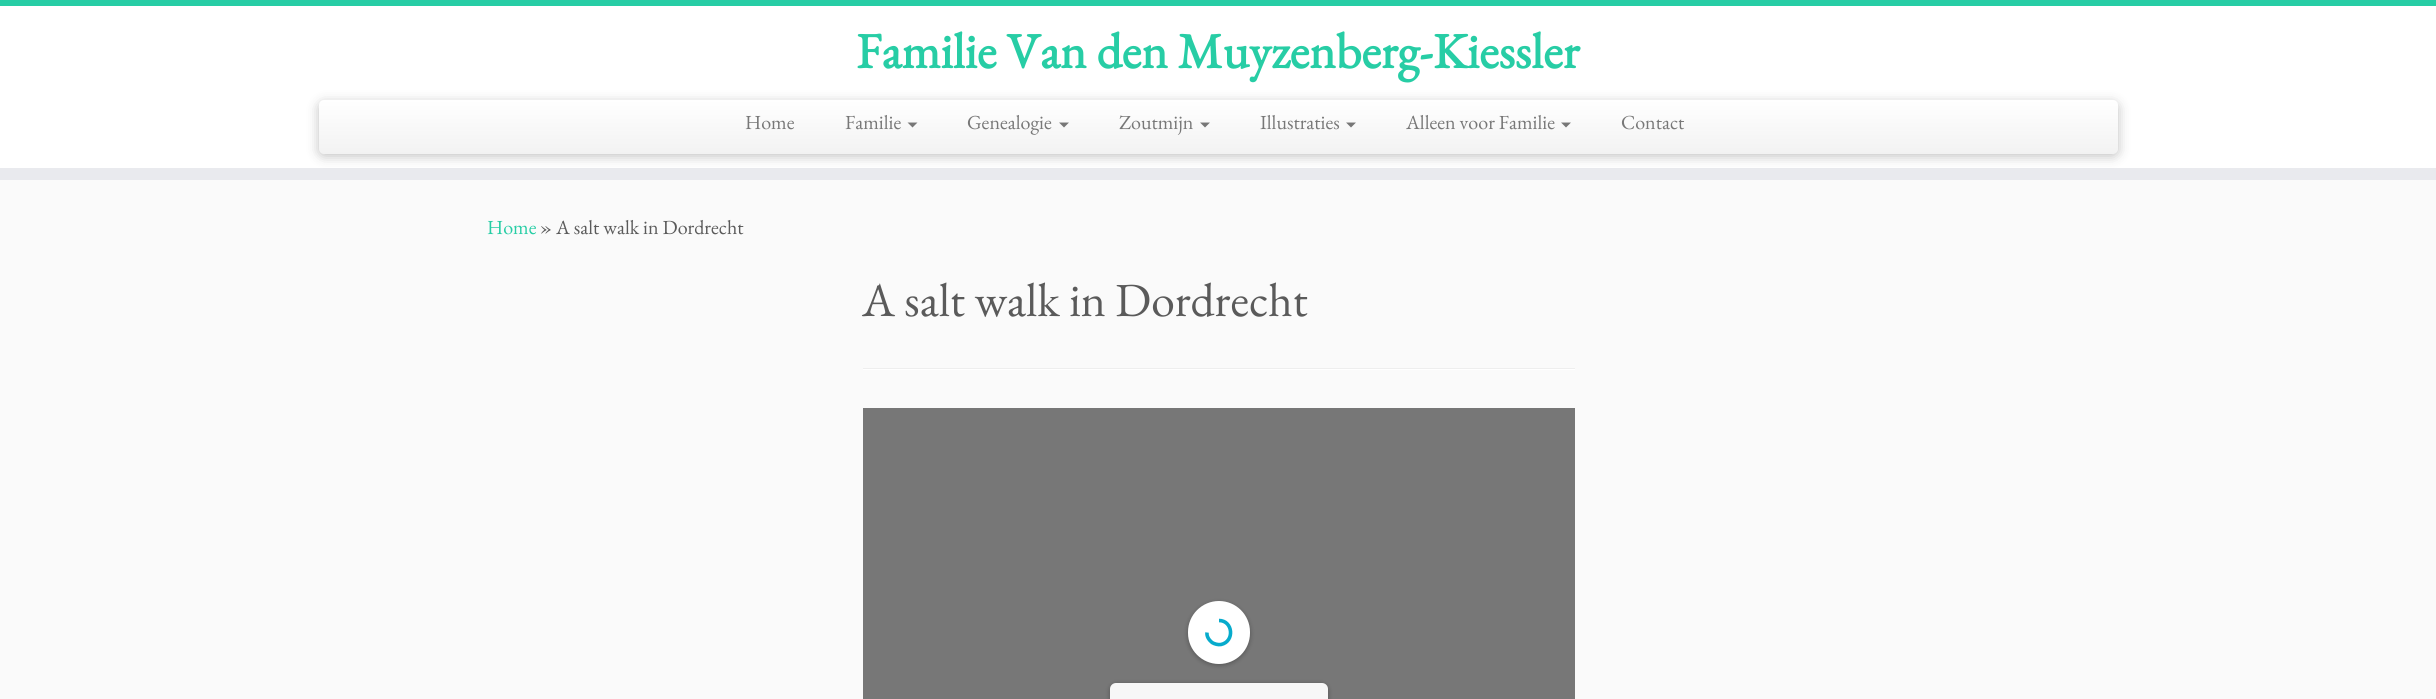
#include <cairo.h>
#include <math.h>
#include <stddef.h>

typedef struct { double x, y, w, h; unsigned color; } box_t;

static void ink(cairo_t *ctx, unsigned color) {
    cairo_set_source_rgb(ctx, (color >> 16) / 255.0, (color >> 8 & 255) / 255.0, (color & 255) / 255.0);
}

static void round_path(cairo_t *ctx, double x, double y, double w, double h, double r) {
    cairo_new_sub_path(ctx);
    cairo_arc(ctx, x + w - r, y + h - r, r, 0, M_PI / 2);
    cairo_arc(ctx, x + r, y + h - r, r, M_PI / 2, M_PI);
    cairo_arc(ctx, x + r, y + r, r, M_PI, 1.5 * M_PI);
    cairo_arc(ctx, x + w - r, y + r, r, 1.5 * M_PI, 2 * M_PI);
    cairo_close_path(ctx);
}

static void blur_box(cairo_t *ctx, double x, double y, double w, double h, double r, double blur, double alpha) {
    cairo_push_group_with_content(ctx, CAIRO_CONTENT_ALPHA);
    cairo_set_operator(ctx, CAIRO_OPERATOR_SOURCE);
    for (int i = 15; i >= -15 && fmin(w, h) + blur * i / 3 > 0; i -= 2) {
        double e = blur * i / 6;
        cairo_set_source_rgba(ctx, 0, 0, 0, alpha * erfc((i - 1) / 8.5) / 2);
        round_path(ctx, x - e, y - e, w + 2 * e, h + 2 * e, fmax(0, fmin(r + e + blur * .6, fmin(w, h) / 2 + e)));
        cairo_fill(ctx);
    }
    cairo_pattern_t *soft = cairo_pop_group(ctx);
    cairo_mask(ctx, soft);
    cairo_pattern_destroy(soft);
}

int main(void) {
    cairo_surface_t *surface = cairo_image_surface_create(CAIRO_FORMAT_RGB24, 2436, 699);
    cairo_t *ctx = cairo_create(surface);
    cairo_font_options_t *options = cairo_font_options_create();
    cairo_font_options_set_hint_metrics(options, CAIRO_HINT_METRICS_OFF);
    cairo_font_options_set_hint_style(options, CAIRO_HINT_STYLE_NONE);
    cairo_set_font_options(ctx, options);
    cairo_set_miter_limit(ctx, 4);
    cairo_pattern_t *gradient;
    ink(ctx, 0xFAFAFA);
    cairo_paint(ctx);
    {
        static const box_t items[] = {
            {0, 6, 2436, 162, 0xFFFFFF},
            {0, 0, 2436, 6, 0x27CDA5},
            {0, 168, 2436, 12, 0xE9EAEE},
        };
        for (size_t i = 0; i < sizeof items / sizeof *items; i++) {
            ink(ctx, items[i].color);
            cairo_rectangle(ctx, items[i].x, items[i].y, items[i].w, items[i].h);
            cairo_fill(ctx);
        }
    }
    cairo_select_font_face(ctx, "EB Garamond", CAIRO_FONT_SLANT_NORMAL, CAIRO_FONT_WEIGHT_BOLD);
    cairo_set_font_size(ctx, 50);
    ink(ctx, 0x27CDA5);
    cairo_move_to(ctx, 856, 68);
    cairo_show_text(ctx, "Familie Van den Muyzenberg-Kiessler");
    ink(ctx, 0x000000);
    blur_box(ctx, 319, 103, 1799, 53, 5, 6, 0.25);
    gradient = cairo_pattern_create_linear(1218, 100, 1218, 154);
    cairo_pattern_add_color_stop_rgba(gradient, 0, 1, 1, 1, 1);
    cairo_pattern_add_color_stop_rgba(gradient, 1, 0.949, 0.949, 0.949, 1);
    cairo_set_source(ctx, gradient);
    cairo_pattern_destroy(gradient);
    round_path(ctx, 319, 100, 1799, 54, 5);
    cairo_fill(ctx);
    cairo_select_font_face(ctx, "EB Garamond", CAIRO_FONT_SLANT_NORMAL, CAIRO_FONT_WEIGHT_NORMAL);
    cairo_set_font_size(ctx, 20);
    ink(ctx, 0x777777);
    cairo_move_to(ctx, 745, 129);
    cairo_show_text(ctx, "Home");
    cairo_move_to(ctx, 845, 129);
    cairo_show_text(ctx, "Familie");
    cairo_new_path(ctx);
    cairo_move_to(ctx, 907.5, 122.5);
    cairo_line_to(ctx, 917.5, 122.5);
    cairo_line_to(ctx, 912.5, 127.5);
    cairo_close_path(ctx);
    cairo_fill(ctx);
    cairo_move_to(ctx, 967, 129);
    cairo_show_text(ctx, "Genealogie");
    cairo_new_path(ctx);
    cairo_move_to(ctx, 1059, 122.5);
    cairo_line_to(ctx, 1069, 122.5);
    cairo_line_to(ctx, 1064, 127.5);
    cairo_close_path(ctx);
    cairo_fill(ctx);
    cairo_move_to(ctx, 1119, 129);
    cairo_show_text(ctx, "Zoutmijn");
    cairo_new_path(ctx);
    cairo_move_to(ctx, 1200, 122.5);
    cairo_line_to(ctx, 1210, 122.5);
    cairo_line_to(ctx, 1205, 127.5);
    cairo_close_path(ctx);
    cairo_fill(ctx);
    cairo_move_to(ctx, 1260, 129);
    cairo_show_text(ctx, "Illustraties");
    cairo_new_path(ctx);
    cairo_move_to(ctx, 1346, 122.5);
    cairo_line_to(ctx, 1356, 122.5);
    cairo_line_to(ctx, 1351, 127.5);
    cairo_close_path(ctx);
    cairo_fill(ctx);
    cairo_move_to(ctx, 1406, 129);
    cairo_show_text(ctx, "Alleen voor Familie");
    cairo_new_path(ctx);
    cairo_move_to(ctx, 1561, 122.5);
    cairo_line_to(ctx, 1571, 122.5);
    cairo_line_to(ctx, 1566, 127.5);
    cairo_close_path(ctx);
    cairo_fill(ctx);
    cairo_move_to(ctx, 1621, 129);
    cairo_show_text(ctx, "Contact");
    ink(ctx, 0x27CDA5);
    cairo_move_to(ctx, 487, 234);
    cairo_show_text(ctx, "Home");
    ink(ctx, 0x5A5A5A);
    cairo_move_to(ctx, 540, 234);
    cairo_show_text(ctx, "» A salt walk in Dordrecht");
    cairo_set_font_size(ctx, 47.5);
    cairo_move_to(ctx, 862, 316);
    cairo_show_text(ctx, "A salt walk in Dordrecht");
    {
        static const box_t items[] = {
            {863, 368, 712, 1, 0xEEEEEE},
            {863, 369, 712, 1, 0xFFFFFF},
            {863, 408, 712, 291, 0x777777},
        };
        for (size_t i = 0; i < sizeof items / sizeof *items; i++) {
            ink(ctx, items[i].color);
            cairo_rectangle(ctx, items[i].x, items[i].y, items[i].w, items[i].h);
            cairo_fill(ctx);
        }
    }
    ink(ctx, 0x000000);
    blur_box(ctx, 1188, 603, 62, 62, 31, 2.5, 0.3);
    ink(ctx, 0xFFFFFF);
    round_path(ctx, 1188, 601, 62, 63, 31);
    cairo_fill(ctx);
    cairo_new_path(ctx);
    cairo_move_to(ctx, 1219, 620.5);
    cairo_curve_to(ctx, 1233, 620.5, 1235, 641.5, 1221, 644.5);
    cairo_curve_to(ctx, 1218, 645, 1214.5, 644, 1212, 642.5);
    cairo_curve_to(ctx, 1209, 640, 1206.5, 636.5, 1207, 632.5);
    ink(ctx, 0x07ABCC);
    cairo_set_line_width(ctx, 3.6);
    cairo_stroke(ctx);
    ink(ctx, 0x000000);
    blur_box(ctx, 1110, 684, 218, 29, 6, 2.5, 0.3);
    ink(ctx, 0xF7F7F7);
    round_path(ctx, 1110, 683, 218, 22, 6);
    cairo_fill(ctx);
    cairo_surface_write_to_png(surface, "image.png");
    cairo_font_options_destroy(options);
    cairo_destroy(ctx);
    cairo_surface_destroy(surface);
    return 0;
}
